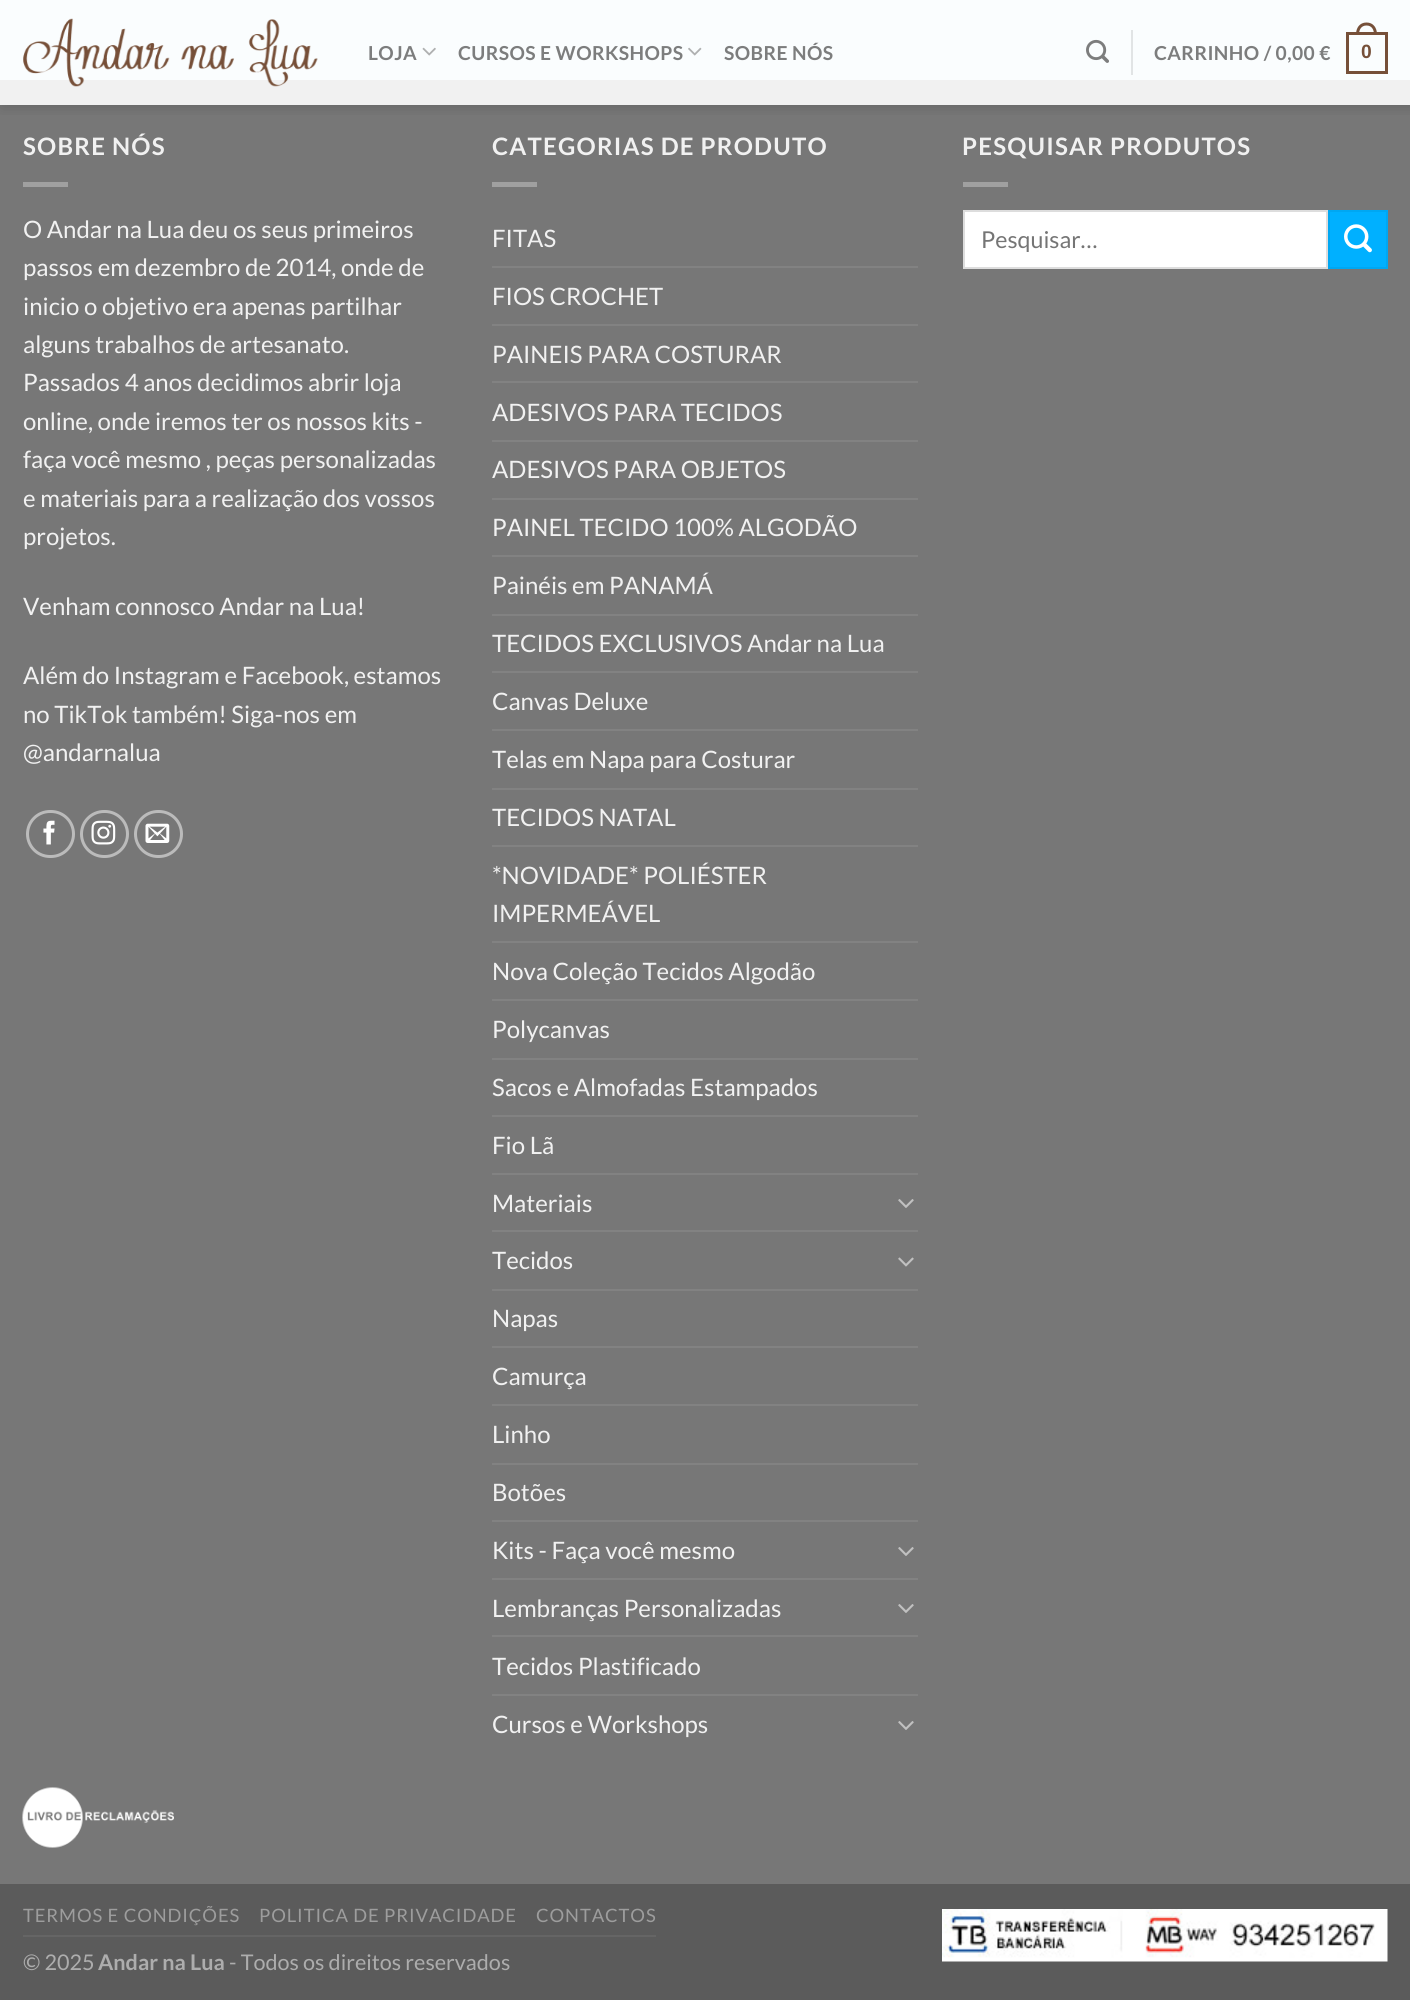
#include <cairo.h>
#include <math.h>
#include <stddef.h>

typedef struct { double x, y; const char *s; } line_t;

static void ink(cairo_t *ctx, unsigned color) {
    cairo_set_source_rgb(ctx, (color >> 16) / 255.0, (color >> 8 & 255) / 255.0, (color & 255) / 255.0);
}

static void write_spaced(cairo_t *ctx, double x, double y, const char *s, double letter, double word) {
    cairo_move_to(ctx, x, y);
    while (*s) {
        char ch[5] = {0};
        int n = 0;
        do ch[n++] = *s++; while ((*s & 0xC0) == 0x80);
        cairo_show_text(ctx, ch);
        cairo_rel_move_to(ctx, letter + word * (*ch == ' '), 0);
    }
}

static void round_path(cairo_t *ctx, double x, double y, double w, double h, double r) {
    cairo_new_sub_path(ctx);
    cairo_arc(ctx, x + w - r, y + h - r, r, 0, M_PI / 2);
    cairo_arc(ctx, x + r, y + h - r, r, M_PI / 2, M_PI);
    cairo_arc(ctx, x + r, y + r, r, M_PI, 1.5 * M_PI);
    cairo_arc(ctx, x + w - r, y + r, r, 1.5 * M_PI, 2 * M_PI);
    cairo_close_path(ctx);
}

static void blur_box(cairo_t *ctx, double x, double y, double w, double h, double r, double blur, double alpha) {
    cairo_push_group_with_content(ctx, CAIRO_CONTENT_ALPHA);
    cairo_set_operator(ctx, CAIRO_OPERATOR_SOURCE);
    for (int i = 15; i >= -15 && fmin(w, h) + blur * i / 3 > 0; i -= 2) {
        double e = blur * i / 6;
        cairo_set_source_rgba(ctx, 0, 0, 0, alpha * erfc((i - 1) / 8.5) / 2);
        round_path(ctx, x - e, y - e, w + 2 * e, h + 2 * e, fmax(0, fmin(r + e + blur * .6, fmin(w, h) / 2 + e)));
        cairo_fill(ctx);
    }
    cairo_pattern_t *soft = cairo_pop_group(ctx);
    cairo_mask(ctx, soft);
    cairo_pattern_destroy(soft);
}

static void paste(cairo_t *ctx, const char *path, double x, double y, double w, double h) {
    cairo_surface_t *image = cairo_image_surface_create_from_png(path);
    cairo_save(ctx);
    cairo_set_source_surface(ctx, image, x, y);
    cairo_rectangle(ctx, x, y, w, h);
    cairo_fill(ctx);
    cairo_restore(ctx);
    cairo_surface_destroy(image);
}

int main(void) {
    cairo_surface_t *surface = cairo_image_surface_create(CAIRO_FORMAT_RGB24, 1410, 2000);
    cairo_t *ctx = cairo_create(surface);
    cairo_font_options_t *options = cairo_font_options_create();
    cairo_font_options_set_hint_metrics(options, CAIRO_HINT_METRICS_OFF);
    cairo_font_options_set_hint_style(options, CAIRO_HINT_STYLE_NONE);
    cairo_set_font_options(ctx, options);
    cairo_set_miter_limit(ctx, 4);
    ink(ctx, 0xFAFDFE);
    cairo_paint(ctx);
    ink(ctx, 0x777777);
    cairo_rectangle(ctx, 0, 105, 1410, 1779);
    cairo_fill(ctx);
    ink(ctx, 0xF1F1F1);
    cairo_rectangle(ctx, 0, 80, 1410, 25);
    cairo_fill(ctx);
    cairo_save(ctx);
    cairo_rectangle(ctx, 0, 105, 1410, 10);
    cairo_clip(ctx);
    ink(ctx, 0x000000);
    blur_box(ctx, 2, 2, 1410, 105, 0, 7.5, 0.15);
    cairo_restore(ctx);
    paste(ctx, "media/1.png", 23, 18, 295, 69);
    cairo_select_font_face(ctx, "Lato", CAIRO_FONT_SLANT_NORMAL, CAIRO_FONT_WEIGHT_BOLD);
    cairo_set_font_size(ctx, 19.25);
    ink(ctx, 0x7C7D7D);
    write_spaced(ctx, 368, 60, "LOJA", 0.4, 0);
    paste(ctx, "media/2.png", 422, 47, 14, 9);
    write_spaced(ctx, 458, 60, "CURSOS E WORKSHOPS", 0.4, 0);
    paste(ctx, "media/3.png", 688, 47, 14, 9);
    write_spaced(ctx, 724, 60, "SOBRE NÓS", 0.4, 0);
    paste(ctx, "media/4.png", 1086, 39, 23, 24);
    ink(ctx, 0xE1E4E5);
    cairo_rectangle(ctx, 1131, 30, 2, 45);
    cairo_fill(ctx);
    ink(ctx, 0x7C7D7D);
    write_spaced(ctx, 1154, 60, "CARRINHO / 0,00 €", 0.4, 0);
    cairo_rectangle(ctx, 1347.5, 33.5, 39, 39);
    ink(ctx, 0x765039);
    cairo_set_line_width(ctx, 3);
    cairo_stroke(ctx);
    cairo_set_fill_rule(ctx, CAIRO_FILL_RULE_EVEN_ODD);
    cairo_new_path(ctx);
    cairo_move_to(ctx, 1366.5, 22.5);
    cairo_curve_to(ctx, 1373.5, 22.5, 1377, 28, 1377, 34.5);
    cairo_line_to(ctx, 1356, 34.5);
    cairo_curve_to(ctx, 1356, 28, 1359.5, 22.5, 1366.5, 22.5);
    cairo_close_path(ctx);
    cairo_move_to(ctx, 1366.5, 25.5);
    cairo_curve_to(ctx, 1372, 25.5, 1374, 30, 1374, 34.5);
    cairo_line_to(ctx, 1359, 34.5);
    cairo_curve_to(ctx, 1359, 30, 1361, 25.5, 1366.5, 25.5);
    cairo_close_path(ctx);
    cairo_fill(ctx);
    cairo_select_font_face(ctx, "Liberation Sans", CAIRO_FONT_SLANT_NORMAL, CAIRO_FONT_WEIGHT_BOLD);
    write_spaced(ctx, 1361, 58, "0", 0.4, 0);
    cairo_select_font_face(ctx, "Lato", CAIRO_FONT_SLANT_NORMAL, CAIRO_FONT_WEIGHT_BOLD);
    cairo_set_font_size(ctx, 24);
    ink(ctx, 0xF1F1F1);
    write_spaced(ctx, 23, 155, "SOBRE NÓS", 1.2, 0);
    ink(ctx, 0xA0A0A0);
    cairo_rectangle(ctx, 23, 182, 45, 5);
    cairo_fill(ctx);
    cairo_select_font_face(ctx, "Lato", CAIRO_FONT_SLANT_NORMAL, CAIRO_FONT_WEIGHT_NORMAL);
    ink(ctx, 0xF1F1F1);
    {
        static const line_t items[] = {
            {23, 238, "O Andar na Lua deu os seus primeiros"},
            {23, 276, "passos em dezembro de 2014, onde de"},
            {23, 315, "inicio o objetivo era apenas partilhar"},
            {23, 353, "alguns trabalhos de artesanato."},
            {23, 391, "Passados 4 anos decidimos abrir loja"},
            {23, 430, "online, onde iremos ter os nossos kits -"},
            {23, 468, "faça você mesmo , peças personalizadas"},
            {23, 507, "e materiais para a realização dos vossos"},
            {23, 545, "projetos."},
            {23, 615, "Venham connosco Andar na Lua!"},
            {23, 684, "Além do Instagram e Facebook, estamos"},
            {23, 723, "no TikTok também! Siga-nos em"},
            {23, 761, "@andarnalua"},
        };
        for (size_t i = 0; i < sizeof items / sizeof *items; i++) {
            cairo_move_to(ctx, items[i].x, items[i].y);
            cairo_show_text(ctx, items[i].s);
        }
    }
    round_path(ctx, 27.5, 811.5, 46, 45, 22.5);
    ink(ctx, 0xBBBBBB);
    cairo_stroke(ctx);
    paste(ctx, "media/5.png", 43, 820, 12, 25);
    round_path(ctx, 81.5, 811.5, 46, 45, 22.5);
    cairo_stroke(ctx);
    paste(ctx, "media/6.png", 91, 820, 25, 25);
    round_path(ctx, 135.5, 811.5, 46, 45, 22.5);
    cairo_stroke(ctx);
    paste(ctx, "media/7.png", 145, 823, 25, 20);
    cairo_select_font_face(ctx, "Lato", CAIRO_FONT_SLANT_NORMAL, CAIRO_FONT_WEIGHT_BOLD);
    ink(ctx, 0xF1F1F1);
    write_spaced(ctx, 492, 155, "CATEGORIAS DE PRODUTO", 1.2, 0);
    ink(ctx, 0xA0A0A0);
    cairo_rectangle(ctx, 492, 182, 45, 5);
    cairo_fill(ctx);
    cairo_select_font_face(ctx, "Lato", CAIRO_FONT_SLANT_NORMAL, CAIRO_FONT_WEIGHT_NORMAL);
    ink(ctx, 0xF1F1F1);
    cairo_move_to(ctx, 492, 247);
    cairo_show_text(ctx, "FITAS");
    ink(ctx, 0x828282);
    cairo_rectangle(ctx, 492, 266, 426, 2);
    cairo_fill(ctx);
    ink(ctx, 0xF1F1F1);
    cairo_move_to(ctx, 492, 305);
    cairo_show_text(ctx, "FIOS CROCHET");
    ink(ctx, 0x828282);
    cairo_rectangle(ctx, 492, 324, 426, 2);
    cairo_fill(ctx);
    ink(ctx, 0xF1F1F1);
    cairo_move_to(ctx, 492, 363);
    cairo_show_text(ctx, "PAINEIS PARA COSTURAR");
    ink(ctx, 0x828282);
    cairo_rectangle(ctx, 492, 381, 426, 2);
    cairo_fill(ctx);
    ink(ctx, 0xF1F1F1);
    cairo_move_to(ctx, 492, 421);
    cairo_show_text(ctx, "ADESIVOS PARA TECIDOS");
    ink(ctx, 0x828282);
    cairo_rectangle(ctx, 492, 440, 426, 2);
    cairo_fill(ctx);
    ink(ctx, 0xF1F1F1);
    cairo_move_to(ctx, 492, 478);
    cairo_show_text(ctx, "ADESIVOS PARA OBJETOS");
    ink(ctx, 0x828282);
    cairo_rectangle(ctx, 492, 498, 426, 2);
    cairo_fill(ctx);
    ink(ctx, 0xF1F1F1);
    cairo_move_to(ctx, 492, 536);
    cairo_show_text(ctx, "PAINEL TECIDO 100% ALGODÃO");
    ink(ctx, 0x828282);
    cairo_rectangle(ctx, 492, 555, 426, 2);
    cairo_fill(ctx);
    ink(ctx, 0xF1F1F1);
    cairo_move_to(ctx, 492, 594);
    cairo_show_text(ctx, "Painéis em PANAMÁ");
    ink(ctx, 0x828282);
    cairo_rectangle(ctx, 492, 614, 426, 2);
    cairo_fill(ctx);
    ink(ctx, 0xF1F1F1);
    cairo_move_to(ctx, 492, 652);
    cairo_show_text(ctx, "TECIDOS EXCLUSIVOS Andar na Lua");
    ink(ctx, 0x828282);
    cairo_rectangle(ctx, 492, 671, 426, 2);
    cairo_fill(ctx);
    ink(ctx, 0xF1F1F1);
    cairo_move_to(ctx, 492, 710);
    cairo_show_text(ctx, "Canvas Deluxe");
    ink(ctx, 0x828282);
    cairo_rectangle(ctx, 492, 729, 426, 2);
    cairo_fill(ctx);
    ink(ctx, 0xF1F1F1);
    cairo_move_to(ctx, 492, 768);
    cairo_show_text(ctx, "Telas em Napa para Costurar");
    ink(ctx, 0x828282);
    cairo_rectangle(ctx, 492, 788, 426, 2);
    cairo_fill(ctx);
    ink(ctx, 0xF1F1F1);
    cairo_move_to(ctx, 492, 826);
    cairo_show_text(ctx, "TECIDOS NATAL");
    ink(ctx, 0x828282);
    cairo_rectangle(ctx, 492, 845, 426, 2);
    cairo_fill(ctx);
    ink(ctx, 0xF1F1F1);
    cairo_move_to(ctx, 492, 884);
    cairo_show_text(ctx, "*NOVIDADE* POLIÉSTER");
    cairo_move_to(ctx, 492, 922);
    cairo_show_text(ctx, "IMPERMEÁVEL");
    ink(ctx, 0x828282);
    cairo_rectangle(ctx, 492, 941, 426, 2);
    cairo_fill(ctx);
    ink(ctx, 0xF1F1F1);
    cairo_move_to(ctx, 492, 980);
    cairo_show_text(ctx, "Nova Coleção Tecidos Algodão");
    ink(ctx, 0x828282);
    cairo_rectangle(ctx, 492, 999, 426, 2);
    cairo_fill(ctx);
    ink(ctx, 0xF1F1F1);
    cairo_move_to(ctx, 492, 1038);
    cairo_show_text(ctx, "Polycanvas");
    ink(ctx, 0x828282);
    cairo_rectangle(ctx, 492, 1058, 426, 2);
    cairo_fill(ctx);
    ink(ctx, 0xF1F1F1);
    cairo_move_to(ctx, 492, 1096);
    cairo_show_text(ctx, "Sacos e Almofadas Estampados");
    ink(ctx, 0x828282);
    cairo_rectangle(ctx, 492, 1115, 426, 2);
    cairo_fill(ctx);
    ink(ctx, 0xF1F1F1);
    cairo_move_to(ctx, 492, 1154);
    cairo_show_text(ctx, "Fio Lã");
    ink(ctx, 0x828282);
    cairo_rectangle(ctx, 492, 1173, 426, 2);
    cairo_fill(ctx);
    ink(ctx, 0xF1F1F1);
    cairo_move_to(ctx, 492, 1212);
    cairo_show_text(ctx, "Materiais");
    paste(ctx, "media/8.png", 898, 1199, 16, 9);
    ink(ctx, 0x828282);
    cairo_rectangle(ctx, 492, 1230, 426, 2);
    cairo_fill(ctx);
    ink(ctx, 0xF1F1F1);
    cairo_move_to(ctx, 492, 1269);
    cairo_show_text(ctx, "Tecidos");
    paste(ctx, "media/9.png", 898, 1257, 16, 10);
    ink(ctx, 0x828282);
    cairo_rectangle(ctx, 492, 1289, 426, 2);
    cairo_fill(ctx);
    ink(ctx, 0xF1F1F1);
    cairo_move_to(ctx, 492, 1327);
    cairo_show_text(ctx, "Napas");
    ink(ctx, 0x828282);
    cairo_rectangle(ctx, 492, 1346, 426, 2);
    cairo_fill(ctx);
    ink(ctx, 0xF1F1F1);
    cairo_move_to(ctx, 492, 1385);
    cairo_show_text(ctx, "Camurça");
    ink(ctx, 0x828282);
    cairo_rectangle(ctx, 492, 1404, 426, 2);
    cairo_fill(ctx);
    ink(ctx, 0xF1F1F1);
    cairo_move_to(ctx, 492, 1443);
    cairo_show_text(ctx, "Linho");
    ink(ctx, 0x828282);
    cairo_rectangle(ctx, 492, 1463, 426, 2);
    cairo_fill(ctx);
    ink(ctx, 0xF1F1F1);
    cairo_move_to(ctx, 492, 1501);
    cairo_show_text(ctx, "Botões");
    ink(ctx, 0x828282);
    cairo_rectangle(ctx, 492, 1520, 426, 2);
    cairo_fill(ctx);
    ink(ctx, 0xF1F1F1);
    cairo_move_to(ctx, 492, 1559);
    cairo_show_text(ctx, "Kits - Faça você mesmo");
    paste(ctx, "media/8.png", 898, 1547, 16, 9);
    ink(ctx, 0x828282);
    cairo_rectangle(ctx, 492, 1578, 426, 2);
    cairo_fill(ctx);
    ink(ctx, 0xF1F1F1);
    cairo_move_to(ctx, 492, 1617);
    cairo_show_text(ctx, "Lembranças Personalizadas");
    paste(ctx, "media/8.png", 898, 1604, 16, 9);
    ink(ctx, 0x828282);
    cairo_rectangle(ctx, 492, 1635, 426, 2);
    cairo_fill(ctx);
    ink(ctx, 0xF1F1F1);
    cairo_move_to(ctx, 492, 1675);
    cairo_show_text(ctx, "Tecidos Plastificado");
    ink(ctx, 0x828282);
    cairo_rectangle(ctx, 492, 1694, 426, 2);
    cairo_fill(ctx);
    ink(ctx, 0xF1F1F1);
    cairo_move_to(ctx, 492, 1733);
    cairo_show_text(ctx, "Cursos e Workshops");
    paste(ctx, "media/8.png", 898, 1721, 16, 9);
    cairo_select_font_face(ctx, "Lato", CAIRO_FONT_SLANT_NORMAL, CAIRO_FONT_WEIGHT_BOLD);
    write_spaced(ctx, 962, 155, "PESQUISAR PRODUTOS", 1.2, 0);
    ink(ctx, 0xA0A0A0);
    cairo_rectangle(ctx, 963, 182, 45, 5);
    cairo_fill(ctx);
    ink(ctx, 0xFFFFFF);
    cairo_rectangle(ctx, 964, 211, 363, 57);
    cairo_fill_preserve(ctx);
    ink(ctx, 0xDDDDDD);
    cairo_set_line_width(ctx, 2);
    cairo_stroke(ctx);
    cairo_select_font_face(ctx, "Lato", CAIRO_FONT_SLANT_NORMAL, CAIRO_FONT_WEIGHT_NORMAL);
    cairo_set_font_size(ctx, 23.25);
    ink(ctx, 0x757575);
    cairo_move_to(ctx, 981, 248);
    cairo_show_text(ctx, "Pesquisar…");
    ink(ctx, 0x00B0FF);
    cairo_rectangle(ctx, 1329, 211, 58, 57);
    cairo_fill_preserve(ctx);
    ink(ctx, 0x00A7F2);
    cairo_stroke(ctx);
    paste(ctx, "media/10.png", 1344, 224, 28, 29);
    paste(ctx, "media/11.png", 22, 1787, 152, 61);
    ink(ctx, 0x5B5B5B);
    cairo_rectangle(ctx, 0, 1884, 1410, 116);
    cairo_fill(ctx);
    ink(ctx, 0x656565);
    cairo_rectangle(ctx, 23, 1935, 633, 2);
    cairo_fill(ctx);
    cairo_set_font_size(ctx, 18.4);
    ink(ctx, 0x9D9D9D);
    {
        static const line_t items[] = {
            {23, 1922, "TERMOS E CONDIÇÕES"},
            {259, 1922, "POLITICA DE PRIVACIDADE"},
            {536, 1922, "CONTACTOS"},
        };
        for (size_t i = 0; i < sizeof items / sizeof *items; i++) {
            write_spaced(ctx, items[i].x, items[i].y, items[i].s, 0.9, 0);
        }
    }
    cairo_set_font_size(ctx, 21.6);
    ink(ctx, 0xADADAD);
    cairo_move_to(ctx, 23, 1970);
    cairo_show_text(ctx, "© 2025");
    cairo_select_font_face(ctx, "Lato", CAIRO_FONT_SLANT_NORMAL, CAIRO_FONT_WEIGHT_BOLD);
    cairo_move_to(ctx, 98, 1970);
    cairo_show_text(ctx, "Andar na Lua");
    cairo_select_font_face(ctx, "Lato", CAIRO_FONT_SLANT_NORMAL, CAIRO_FONT_WEIGHT_NORMAL);
    cairo_move_to(ctx, 229, 1970);
    cairo_show_text(ctx, "- Todos os direitos reservados");
    paste(ctx, "media/12.png", 942, 1909, 446, 53);
    cairo_surface_write_to_png(surface, "image.png");
    cairo_font_options_destroy(options);
    cairo_destroy(ctx);
    cairo_surface_destroy(surface);
    return 0;
}
